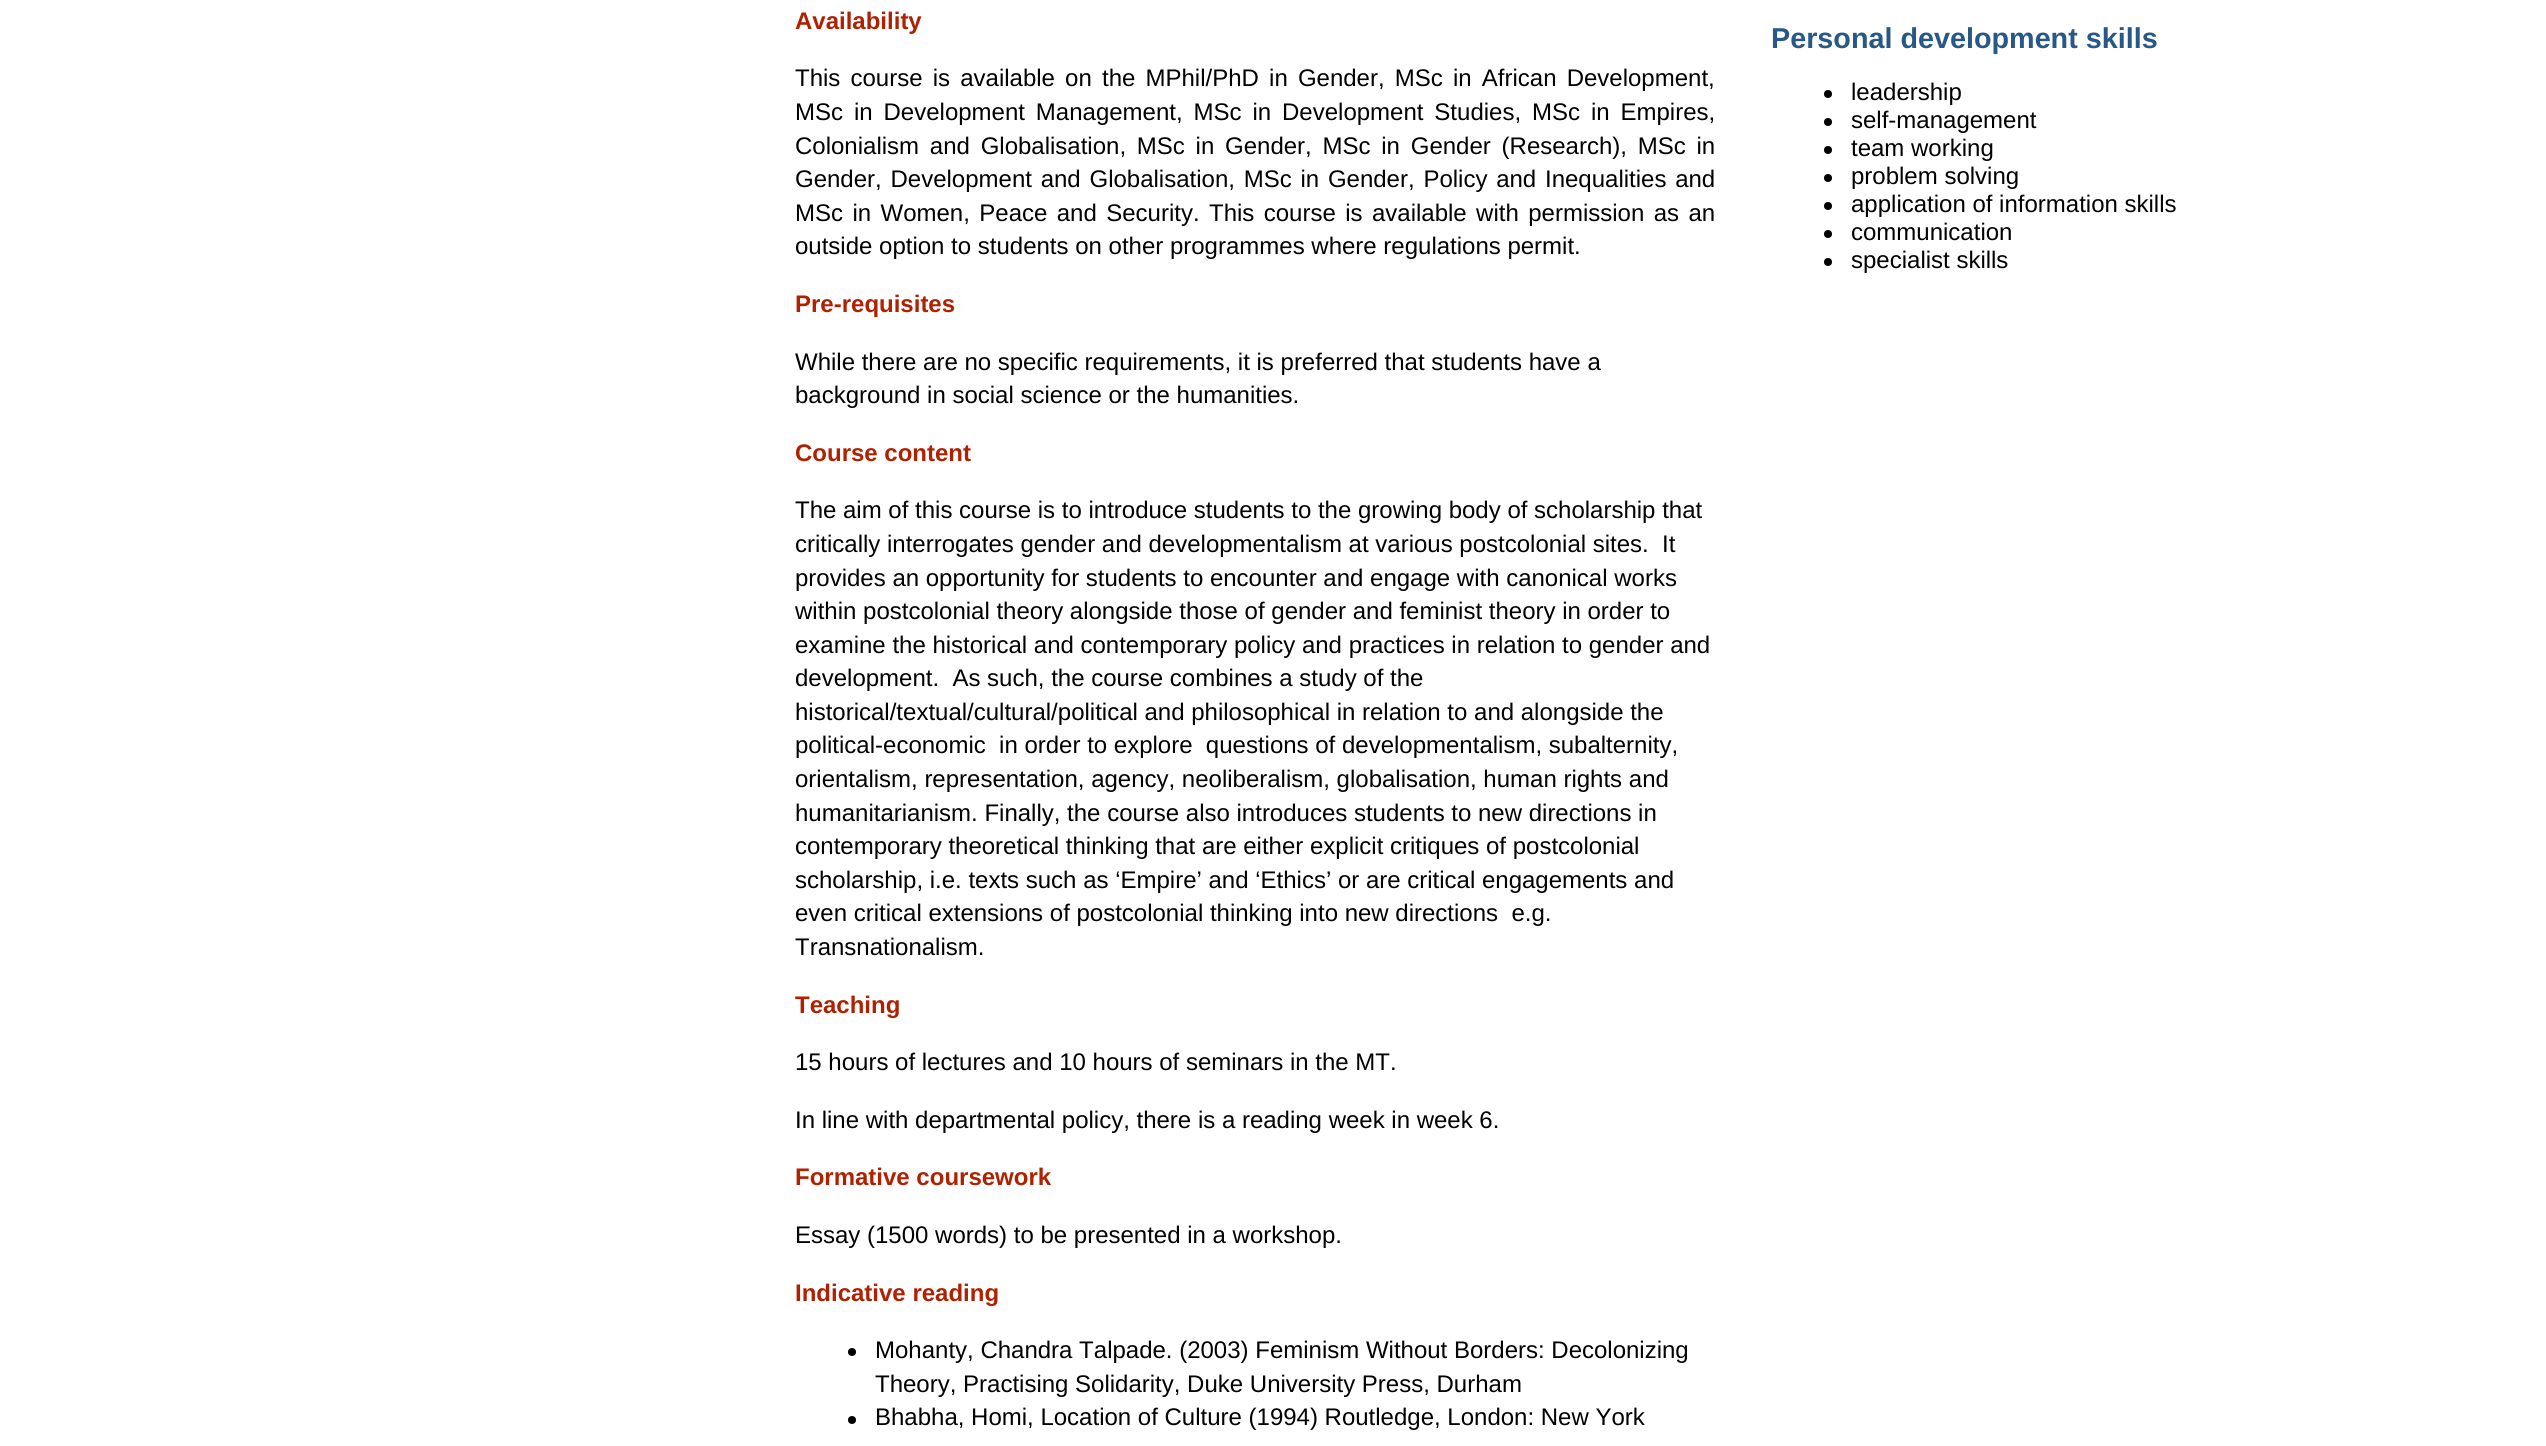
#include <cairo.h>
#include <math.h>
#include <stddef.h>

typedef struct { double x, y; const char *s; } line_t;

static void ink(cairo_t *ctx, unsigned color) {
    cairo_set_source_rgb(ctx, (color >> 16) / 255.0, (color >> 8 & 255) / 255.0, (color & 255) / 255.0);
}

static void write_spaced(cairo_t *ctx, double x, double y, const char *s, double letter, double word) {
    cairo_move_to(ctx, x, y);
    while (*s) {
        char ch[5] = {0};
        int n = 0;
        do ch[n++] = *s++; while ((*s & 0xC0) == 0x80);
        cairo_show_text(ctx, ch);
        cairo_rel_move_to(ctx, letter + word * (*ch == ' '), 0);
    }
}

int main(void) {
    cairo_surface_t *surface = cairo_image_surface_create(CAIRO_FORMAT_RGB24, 2546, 1446);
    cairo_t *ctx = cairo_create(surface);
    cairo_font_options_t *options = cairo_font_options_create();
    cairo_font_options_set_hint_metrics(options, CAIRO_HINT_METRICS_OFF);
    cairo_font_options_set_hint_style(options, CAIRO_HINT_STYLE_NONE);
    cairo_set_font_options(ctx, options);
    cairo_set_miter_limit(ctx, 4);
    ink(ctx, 0xFFFFFF);
    cairo_paint(ctx);
    cairo_select_font_face(ctx, "Liberation Sans", CAIRO_FONT_SLANT_NORMAL, CAIRO_FONT_WEIGHT_BOLD);
    cairo_set_font_size(ctx, 24);
    ink(ctx, 0xB02101);
    cairo_move_to(ctx, 795, 29);
    cairo_show_text(ctx, "Availability");
    cairo_select_font_face(ctx, "Liberation Sans", CAIRO_FONT_SLANT_NORMAL, CAIRO_FONT_WEIGHT_NORMAL);
    ink(ctx, 0x000000);
    write_spaced(ctx, 795, 86, "This course is available on the MPhil/PhD in Gender, MSc in African Development,", 0, 3.5);
    write_spaced(ctx, 795, 120, "MSc in Development Management, MSc in Development Studies, MSc in Empires,", 0, 4.25);
    write_spaced(ctx, 795, 154, "Colonialism and Globalisation, MSc in Gender, MSc in Gender (Research), MSc in", 0, 4.1);
    write_spaced(ctx, 795, 187, "Gender, Development and Globalisation, MSc in Gender, Policy and Inequalities and", 0, 2.1);
    write_spaced(ctx, 795, 221, "MSc in Women, Peace and Security. This course is available with permission as an", 0, 2.75);
    cairo_move_to(ctx, 795, 254);
    cairo_show_text(ctx, "outside option to students on other programmes where regulations permit.");
    cairo_select_font_face(ctx, "Liberation Sans", CAIRO_FONT_SLANT_NORMAL, CAIRO_FONT_WEIGHT_BOLD);
    ink(ctx, 0xB02101);
    cairo_move_to(ctx, 795, 312);
    cairo_show_text(ctx, "Pre-requisites");
    cairo_select_font_face(ctx, "Liberation Sans", CAIRO_FONT_SLANT_NORMAL, CAIRO_FONT_WEIGHT_NORMAL);
    ink(ctx, 0x000000);
    cairo_move_to(ctx, 795, 370);
    cairo_show_text(ctx, "While there are no specific requirements, it is preferred that students have a");
    cairo_move_to(ctx, 795, 403);
    cairo_show_text(ctx, "background in social science or the humanities.");
    cairo_select_font_face(ctx, "Liberation Sans", CAIRO_FONT_SLANT_NORMAL, CAIRO_FONT_WEIGHT_BOLD);
    ink(ctx, 0xB02101);
    cairo_move_to(ctx, 795, 461);
    cairo_show_text(ctx, "Course content");
    cairo_select_font_face(ctx, "Liberation Sans", CAIRO_FONT_SLANT_NORMAL, CAIRO_FONT_WEIGHT_NORMAL);
    ink(ctx, 0x000000);
    {
        static const line_t items[] = {
            {795, 518, "The aim of this course is to introduce students to the growing body of scholarship that"},
            {795, 552, "critically interrogates gender and developmentalism at various postcolonial sites.  It"},
            {795, 586, "provides an opportunity for students to encounter and engage with canonical works"},
            {795, 619, "within postcolonial theory alongside those of gender and feminist theory in order to"},
            {795, 653, "examine the historical and contemporary policy and practices in relation to gender and"},
            {795, 686, "development.  As such, the course combines a study of the"},
            {795, 720, "historical/textual/cultural/political and philosophical in relation to and alongside the"},
            {795, 753, "political-economic  in order to explore  questions of developmentalism, subalternity,"},
            {795, 787, "orientalism, representation, agency, neoliberalism, globalisation, human rights and"},
            {795, 821, "humanitarianism. Finally, the course also introduces students to new directions in"},
            {795, 854, "contemporary theoretical thinking that are either explicit critiques of postcolonial"},
            {795, 888, "scholarship, i.e. texts such as ‘Empire’ and ‘Ethics’ or are critical engagements and"},
            {795, 921, "even critical extensions of postcolonial thinking into new directions  e.g."},
            {795, 955, "Transnationalism."},
        };
        for (size_t i = 0; i < sizeof items / sizeof *items; i++) {
            cairo_move_to(ctx, items[i].x, items[i].y);
            cairo_show_text(ctx, items[i].s);
        }
    }
    cairo_select_font_face(ctx, "Liberation Sans", CAIRO_FONT_SLANT_NORMAL, CAIRO_FONT_WEIGHT_BOLD);
    ink(ctx, 0xB02101);
    cairo_move_to(ctx, 795, 1013);
    cairo_show_text(ctx, "Teaching");
    cairo_select_font_face(ctx, "Liberation Sans", CAIRO_FONT_SLANT_NORMAL, CAIRO_FONT_WEIGHT_NORMAL);
    ink(ctx, 0x000000);
    cairo_move_to(ctx, 795, 1070);
    cairo_show_text(ctx, "15 hours of lectures and 10 hours of seminars in the MT.");
    cairo_move_to(ctx, 795, 1128);
    cairo_show_text(ctx, "In line with departmental policy, there is a reading week in week 6.");
    cairo_select_font_face(ctx, "Liberation Sans", CAIRO_FONT_SLANT_NORMAL, CAIRO_FONT_WEIGHT_BOLD);
    ink(ctx, 0xB02101);
    cairo_move_to(ctx, 795, 1185);
    cairo_show_text(ctx, "Formative coursework");
    cairo_select_font_face(ctx, "Liberation Sans", CAIRO_FONT_SLANT_NORMAL, CAIRO_FONT_WEIGHT_NORMAL);
    ink(ctx, 0x000000);
    cairo_move_to(ctx, 795, 1243);
    cairo_show_text(ctx, "Essay (1500 words) to be presented in a workshop.");
    cairo_select_font_face(ctx, "Liberation Sans", CAIRO_FONT_SLANT_NORMAL, CAIRO_FONT_WEIGHT_BOLD);
    ink(ctx, 0xB02101);
    cairo_move_to(ctx, 795, 1301);
    cairo_show_text(ctx, "Indicative reading");
    ink(ctx, 0x000000);
    cairo_new_path(ctx);
    cairo_arc(ctx, 852, 1352, 4, 0, 2 * M_PI);
    cairo_fill(ctx);
    cairo_select_font_face(ctx, "Liberation Sans", CAIRO_FONT_SLANT_NORMAL, CAIRO_FONT_WEIGHT_NORMAL);
    cairo_move_to(ctx, 875, 1358);
    cairo_show_text(ctx, "Mohanty, Chandra Talpade. (2003) Feminism Without Borders: Decolonizing");
    cairo_move_to(ctx, 875, 1392);
    cairo_show_text(ctx, "Theory, Practising Solidarity, Duke University Press, Durham");
    cairo_new_path(ctx);
    cairo_arc(ctx, 852, 1420, 4, 0, 2 * M_PI);
    cairo_fill(ctx);
    cairo_move_to(ctx, 875, 1425);
    cairo_show_text(ctx, "Bhabha, Homi, Location of Culture (1994) Routledge, London: New York");
    cairo_select_font_face(ctx, "Liberation Sans", CAIRO_FONT_SLANT_NORMAL, CAIRO_FONT_WEIGHT_BOLD);
    cairo_set_font_size(ctx, 28.75);
    ink(ctx, 0x285886);
    cairo_move_to(ctx, 1771, 48);
    cairo_show_text(ctx, "Personal development skills");
    ink(ctx, 0x000000);
    cairo_new_path(ctx);
    cairo_arc(ctx, 1828, 94, 4, 0, 2 * M_PI);
    cairo_fill(ctx);
    cairo_select_font_face(ctx, "Liberation Sans", CAIRO_FONT_SLANT_NORMAL, CAIRO_FONT_WEIGHT_NORMAL);
    cairo_set_font_size(ctx, 24);
    cairo_move_to(ctx, 1851, 100);
    cairo_show_text(ctx, "leadership");
    cairo_new_path(ctx);
    cairo_arc(ctx, 1828, 122, 4, 0, 2 * M_PI);
    cairo_fill(ctx);
    cairo_move_to(ctx, 1851, 128);
    cairo_show_text(ctx, "self-management");
    cairo_new_path(ctx);
    cairo_arc(ctx, 1828, 150, 4, 0, 2 * M_PI);
    cairo_fill(ctx);
    cairo_move_to(ctx, 1851, 156);
    cairo_show_text(ctx, "team working");
    cairo_new_path(ctx);
    cairo_arc(ctx, 1828, 178, 4, 0, 2 * M_PI);
    cairo_fill(ctx);
    cairo_move_to(ctx, 1851, 184);
    cairo_show_text(ctx, "problem solving");
    cairo_new_path(ctx);
    cairo_arc(ctx, 1828, 206, 4, 0, 2 * M_PI);
    cairo_fill(ctx);
    cairo_move_to(ctx, 1851, 212);
    cairo_show_text(ctx, "application of information skills");
    cairo_new_path(ctx);
    cairo_arc(ctx, 1828, 234, 4, 0, 2 * M_PI);
    cairo_fill(ctx);
    cairo_move_to(ctx, 1851, 240);
    cairo_show_text(ctx, "communication");
    cairo_new_path(ctx);
    cairo_arc(ctx, 1828, 262, 4, 0, 2 * M_PI);
    cairo_fill(ctx);
    cairo_move_to(ctx, 1851, 268);
    cairo_show_text(ctx, "specialist skills");
    cairo_surface_write_to_png(surface, "image.png");
    cairo_font_options_destroy(options);
    cairo_destroy(ctx);
    cairo_surface_destroy(surface);
    return 0;
}
